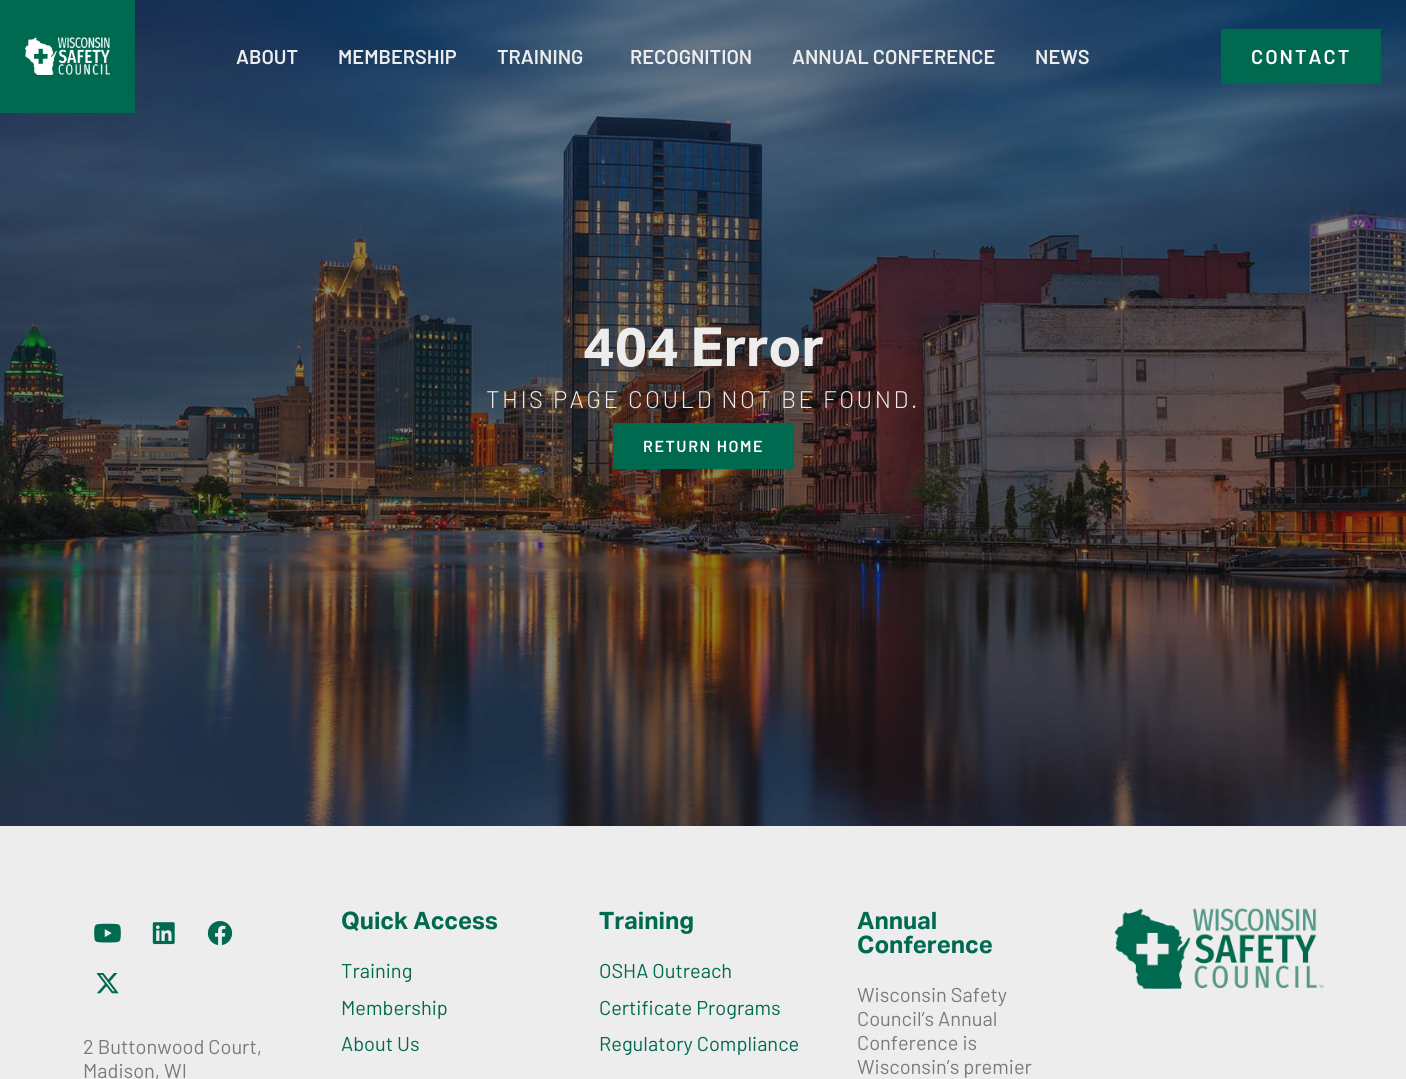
#include <cairo.h>
#include <math.h>
#include <stddef.h>

typedef struct { double x, y; const char *s; } line_t;

static void ink(cairo_t *ctx, unsigned color) {
    cairo_set_source_rgb(ctx, (color >> 16) / 255.0, (color >> 8 & 255) / 255.0, (color & 255) / 255.0);
}

static void write_spaced(cairo_t *ctx, double x, double y, const char *s, double letter, double word) {
    cairo_move_to(ctx, x, y);
    while (*s) {
        char ch[5] = {0};
        int n = 0;
        do ch[n++] = *s++; while ((*s & 0xC0) == 0x80);
        cairo_show_text(ctx, ch);
        cairo_rel_move_to(ctx, letter + word * (*ch == ' '), 0);
    }
}

static void paste(cairo_t *ctx, const char *path, double x, double y, double w, double h) {
    cairo_surface_t *image = cairo_image_surface_create_from_png(path);
    cairo_save(ctx);
    cairo_set_source_surface(ctx, image, x, y);
    cairo_rectangle(ctx, x, y, w, h);
    cairo_fill(ctx);
    cairo_restore(ctx);
    cairo_surface_destroy(image);
}

int main(void) {
    cairo_surface_t *surface = cairo_image_surface_create(CAIRO_FORMAT_RGB24, 1406, 1079);
    cairo_t *ctx = cairo_create(surface);
    cairo_font_options_t *options = cairo_font_options_create();
    cairo_font_options_set_hint_metrics(options, CAIRO_HINT_METRICS_OFF);
    cairo_font_options_set_hint_style(options, CAIRO_HINT_STYLE_NONE);
    cairo_set_font_options(ctx, options);
    cairo_set_miter_limit(ctx, 4);
    ink(ctx, 0xFFFFFF);
    cairo_paint(ctx);
    paste(ctx, "media/2.png", 0, 0, 1406, 826);
    ink(ctx, 0x006A50);
    cairo_rectangle(ctx, 0, 0, 135, 113);
    cairo_fill(ctx);
    paste(ctx, "media/1.png", 25, 37, 85, 38);
    cairo_select_font_face(ctx, "Barlow SemiBold", CAIRO_FONT_SLANT_NORMAL, CAIRO_FONT_WEIGHT_NORMAL);
    cairo_set_font_size(ctx, 20);
    ink(ctx, 0xEDEDED);
    {
        static const line_t items[] = {
            {236, 64, "ABOUT"},
            {338, 64, "MEMBERSHIP"},
            {497, 64, "TRAINING"},
            {630, 64, "RECOGNITION"},
            {792, 64, "ANNUAL CONFERENCE"},
            {1035, 64, "NEWS"},
        };
        for (size_t i = 0; i < sizeof items / sizeof *items; i++) {
            cairo_move_to(ctx, items[i].x, items[i].y);
            cairo_show_text(ctx, items[i].s);
        }
    }
    ink(ctx, 0x006A50);
    cairo_rectangle(ctx, 1221, 29, 160, 55);
    cairo_fill(ctx);
    ink(ctx, 0xFFFFFF);
    write_spaced(ctx, 1251, 64, "CONTACT", 2, 0);
    cairo_select_font_face(ctx, "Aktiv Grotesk", CAIRO_FONT_SLANT_NORMAL, CAIRO_FONT_WEIGHT_BOLD);
    cairo_set_font_size(ctx, 54);
    ink(ctx, 0xEDEDED);
    cairo_move_to(ctx, 583, 366);
    cairo_show_text(ctx, "404 Error");
    cairo_select_font_face(ctx, "Barlow Light", CAIRO_FONT_SLANT_NORMAL, CAIRO_FONT_WEIGHT_NORMAL);
    cairo_set_font_size(ctx, 24);
    write_spaced(ctx, 486, 408, "THIS PAGE COULD NOT BE FOUND.", 2.5, 0);
    ink(ctx, 0x006A50);
    cairo_rectangle(ctx, 613, 423, 181, 46);
    cairo_fill(ctx);
    cairo_select_font_face(ctx, "Barlow SemiBold", CAIRO_FONT_SLANT_NORMAL, CAIRO_FONT_WEIGHT_NORMAL);
    cairo_set_font_size(ctx, 16);
    ink(ctx, 0xFFFFFF);
    write_spaced(ctx, 643, 452, "RETURN HOME", 1.6, 0);
    ink(ctx, 0xEDEDED);
    cairo_rectangle(ctx, 0, 826, 1406, 253);
    cairo_fill(ctx);
    paste(ctx, "media/3.png", 94, 923, 27, 20);
    paste(ctx, "media/4.png", 152, 922, 23, 23);
    paste(ctx, "media/5.png", 207, 921, 26, 24);
    paste(ctx, "media/6.png", 96, 973, 23, 21);
    cairo_select_font_face(ctx, "Barlow", CAIRO_FONT_SLANT_NORMAL, CAIRO_FONT_WEIGHT_NORMAL);
    cairo_set_font_size(ctx, 20);
    ink(ctx, 0x7A7A7A);
    cairo_move_to(ctx, 83, 1054);
    cairo_show_text(ctx, "2 Buttonwood Court,");
    cairo_move_to(ctx, 83, 1078);
    cairo_show_text(ctx, "Madison, WI");
    cairo_select_font_face(ctx, "Aktiv Grotesk", CAIRO_FONT_SLANT_NORMAL, CAIRO_FONT_WEIGHT_BOLD);
    cairo_set_font_size(ctx, 24);
    ink(ctx, 0x006A50);
    cairo_move_to(ctx, 341, 929);
    cairo_show_text(ctx, "Quick Access");
    cairo_select_font_face(ctx, "Barlow", CAIRO_FONT_SLANT_NORMAL, CAIRO_FONT_WEIGHT_NORMAL);
    cairo_set_font_size(ctx, 20);
    {
        static const line_t items[] = {
            {341, 978, "Training"},
            {341, 1015, "Membership"},
            {341, 1051, "About Us"},
        };
        for (size_t i = 0; i < sizeof items / sizeof *items; i++) {
            cairo_move_to(ctx, items[i].x, items[i].y);
            cairo_show_text(ctx, items[i].s);
        }
    }
    cairo_select_font_face(ctx, "Aktiv Grotesk", CAIRO_FONT_SLANT_NORMAL, CAIRO_FONT_WEIGHT_BOLD);
    cairo_set_font_size(ctx, 24);
    cairo_move_to(ctx, 599, 929);
    cairo_show_text(ctx, "Training");
    cairo_select_font_face(ctx, "Barlow", CAIRO_FONT_SLANT_NORMAL, CAIRO_FONT_WEIGHT_NORMAL);
    cairo_set_font_size(ctx, 20);
    {
        static const line_t items[] = {
            {599, 978, "OSHA Outreach"},
            {599, 1015, "Certificate Programs"},
            {599, 1051, "Regulatory Compliance"},
        };
        for (size_t i = 0; i < sizeof items / sizeof *items; i++) {
            cairo_move_to(ctx, items[i].x, items[i].y);
            cairo_show_text(ctx, items[i].s);
        }
    }
    cairo_select_font_face(ctx, "Aktiv Grotesk", CAIRO_FONT_SLANT_NORMAL, CAIRO_FONT_WEIGHT_BOLD);
    cairo_set_font_size(ctx, 24);
    cairo_move_to(ctx, 857, 929);
    cairo_show_text(ctx, "Annual");
    cairo_move_to(ctx, 857, 953);
    cairo_show_text(ctx, "Conference");
    cairo_select_font_face(ctx, "Barlow", CAIRO_FONT_SLANT_NORMAL, CAIRO_FONT_WEIGHT_NORMAL);
    cairo_set_font_size(ctx, 20);
    ink(ctx, 0x7A7A7A);
    {
        static const line_t items[] = {
            {857, 1002, "Wisconsin Safety"},
            {857, 1026, "Council’s Annual"},
            {857, 1050, "Conference is"},
            {857, 1074, "Wisconsin’s premier"},
        };
        for (size_t i = 0; i < sizeof items / sizeof *items; i++) {
            cairo_move_to(ctx, items[i].x, items[i].y);
            cairo_show_text(ctx, items[i].s);
        }
    }
    paste(ctx, "media/7.png", 1115, 908, 209, 81);
    cairo_surface_write_to_png(surface, "image.png");
    cairo_font_options_destroy(options);
    cairo_destroy(ctx);
    cairo_surface_destroy(surface);
    return 0;
}
